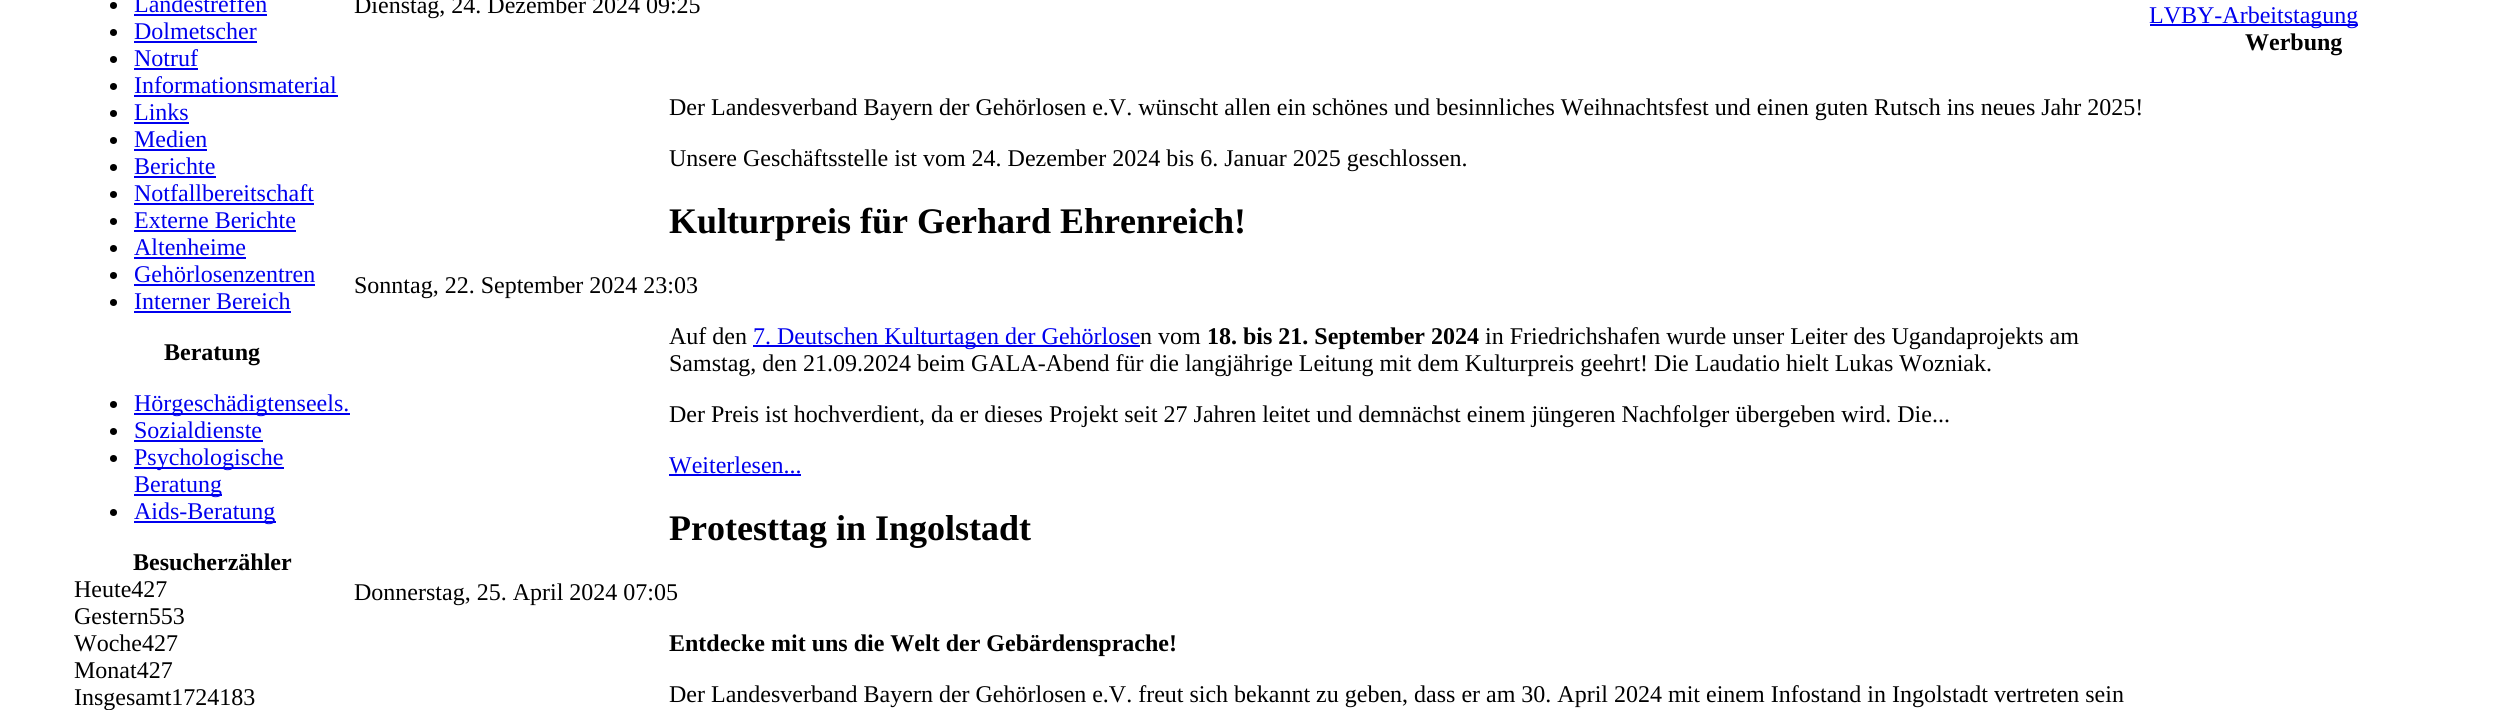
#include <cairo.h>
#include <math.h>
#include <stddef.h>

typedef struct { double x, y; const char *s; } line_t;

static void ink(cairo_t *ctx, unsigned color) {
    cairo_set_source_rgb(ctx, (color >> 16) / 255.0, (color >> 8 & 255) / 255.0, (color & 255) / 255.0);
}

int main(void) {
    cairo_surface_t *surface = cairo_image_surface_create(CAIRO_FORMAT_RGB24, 2512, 710);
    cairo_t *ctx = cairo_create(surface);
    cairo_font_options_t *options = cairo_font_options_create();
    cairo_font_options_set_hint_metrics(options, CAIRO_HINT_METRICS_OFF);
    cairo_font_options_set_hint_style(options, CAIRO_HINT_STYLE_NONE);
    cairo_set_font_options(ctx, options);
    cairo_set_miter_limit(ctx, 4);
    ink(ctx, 0xFFFFFF);
    cairo_paint(ctx);
    ink(ctx, 0x000000);
    cairo_arc(ctx, 113.5, 5.5, 3.5, 0, 2 * M_PI);
    cairo_fill(ctx);
    cairo_select_font_face(ctx, "Liberation Serif", CAIRO_FONT_SLANT_NORMAL, CAIRO_FONT_WEIGHT_NORMAL);
    cairo_set_font_size(ctx, 24);
    ink(ctx, 0x0000EE);
    cairo_move_to(ctx, 134, 12);
    cairo_show_text(ctx, "Landestreffen");
    cairo_rectangle(ctx, 134, 14, 133, 2);
    cairo_fill(ctx);
    ink(ctx, 0x000000);
    cairo_arc(ctx, 113.5, 32.5, 3.5, 0, 2 * M_PI);
    cairo_fill(ctx);
    ink(ctx, 0x0000EE);
    cairo_move_to(ctx, 134, 39);
    cairo_show_text(ctx, "Dolmetscher");
    cairo_rectangle(ctx, 134, 41, 123, 2);
    cairo_fill(ctx);
    ink(ctx, 0x000000);
    cairo_arc(ctx, 113.5, 59.5, 3.5, 0, 2 * M_PI);
    cairo_fill(ctx);
    ink(ctx, 0x0000EE);
    cairo_move_to(ctx, 134, 66);
    cairo_show_text(ctx, "Notruf");
    cairo_rectangle(ctx, 134, 68, 64, 2);
    cairo_fill(ctx);
    ink(ctx, 0x000000);
    cairo_arc(ctx, 113.5, 86.5, 3.5, 0, 2 * M_PI);
    cairo_fill(ctx);
    ink(ctx, 0x0000EE);
    cairo_move_to(ctx, 134, 93);
    cairo_show_text(ctx, "Informationsmaterial");
    cairo_rectangle(ctx, 134, 95, 204, 2);
    cairo_fill(ctx);
    ink(ctx, 0x000000);
    cairo_arc(ctx, 113.5, 113.5, 3.5, 0, 2 * M_PI);
    cairo_fill(ctx);
    ink(ctx, 0x0000EE);
    cairo_move_to(ctx, 134, 120);
    cairo_show_text(ctx, "Links");
    cairo_rectangle(ctx, 134, 122, 55, 2);
    cairo_fill(ctx);
    ink(ctx, 0x000000);
    cairo_arc(ctx, 113.5, 140.5, 3.5, 0, 2 * M_PI);
    cairo_fill(ctx);
    ink(ctx, 0x0000EE);
    cairo_move_to(ctx, 134, 147);
    cairo_show_text(ctx, "Medien");
    cairo_rectangle(ctx, 134, 149, 73, 2);
    cairo_fill(ctx);
    ink(ctx, 0x000000);
    cairo_arc(ctx, 113.5, 167.5, 3.5, 0, 2 * M_PI);
    cairo_fill(ctx);
    ink(ctx, 0x0000EE);
    cairo_move_to(ctx, 134, 174);
    cairo_show_text(ctx, "Berichte");
    cairo_rectangle(ctx, 134, 176, 82, 2);
    cairo_fill(ctx);
    ink(ctx, 0x000000);
    cairo_arc(ctx, 113.5, 194.5, 3.5, 0, 2 * M_PI);
    cairo_fill(ctx);
    ink(ctx, 0x0000EE);
    cairo_move_to(ctx, 134, 201);
    cairo_show_text(ctx, "Notfallbereitschaft");
    cairo_rectangle(ctx, 134, 203, 180, 2);
    cairo_fill(ctx);
    ink(ctx, 0x000000);
    cairo_arc(ctx, 113.5, 221.5, 3.5, 0, 2 * M_PI);
    cairo_fill(ctx);
    ink(ctx, 0x0000EE);
    cairo_move_to(ctx, 134, 228);
    cairo_show_text(ctx, "Externe Berichte");
    cairo_rectangle(ctx, 134, 230, 162, 2);
    cairo_fill(ctx);
    ink(ctx, 0x000000);
    cairo_arc(ctx, 113.5, 248.5, 3.5, 0, 2 * M_PI);
    cairo_fill(ctx);
    ink(ctx, 0x0000EE);
    cairo_move_to(ctx, 134, 255);
    cairo_show_text(ctx, "Altenheime");
    cairo_rectangle(ctx, 134, 257, 112, 2);
    cairo_fill(ctx);
    ink(ctx, 0x000000);
    cairo_arc(ctx, 113.5, 275.5, 3.5, 0, 2 * M_PI);
    cairo_fill(ctx);
    ink(ctx, 0x0000EE);
    cairo_move_to(ctx, 134, 282);
    cairo_show_text(ctx, "Gehörlosenzentren");
    cairo_rectangle(ctx, 134, 284, 181, 2);
    cairo_fill(ctx);
    ink(ctx, 0x000000);
    cairo_arc(ctx, 113.5, 302.5, 3.5, 0, 2 * M_PI);
    cairo_fill(ctx);
    ink(ctx, 0x0000EE);
    cairo_move_to(ctx, 134, 309);
    cairo_show_text(ctx, "Interner Bereich");
    cairo_rectangle(ctx, 134, 311, 157, 2);
    cairo_fill(ctx);
    cairo_select_font_face(ctx, "Liberation Serif", CAIRO_FONT_SLANT_NORMAL, CAIRO_FONT_WEIGHT_BOLD);
    ink(ctx, 0x000000);
    cairo_move_to(ctx, 164, 360);
    cairo_show_text(ctx, "Beratung");
    cairo_new_path(ctx);
    cairo_arc(ctx, 113.5, 404.5, 3.5, 0, 2 * M_PI);
    cairo_fill(ctx);
    ink(ctx, 0x0000EE);
    cairo_rectangle(ctx, 134, 413, 216, 2);
    cairo_fill(ctx);
    cairo_select_font_face(ctx, "Liberation Serif", CAIRO_FONT_SLANT_NORMAL, CAIRO_FONT_WEIGHT_NORMAL);
    cairo_move_to(ctx, 134, 411);
    cairo_show_text(ctx, "Hörgeschädigtenseels.");
    ink(ctx, 0x000000);
    cairo_new_path(ctx);
    cairo_arc(ctx, 113.5, 431.5, 3.5, 0, 2 * M_PI);
    cairo_fill(ctx);
    ink(ctx, 0x0000EE);
    cairo_move_to(ctx, 134, 438);
    cairo_show_text(ctx, "Sozialdienste");
    cairo_rectangle(ctx, 134, 440, 129, 2);
    cairo_fill(ctx);
    ink(ctx, 0x000000);
    cairo_arc(ctx, 113.5, 458.5, 3.5, 0, 2 * M_PI);
    cairo_fill(ctx);
    ink(ctx, 0x0000EE);
    cairo_rectangle(ctx, 134, 467, 150, 2);
    cairo_fill(ctx);
    cairo_move_to(ctx, 134, 465);
    cairo_show_text(ctx, "Psychologische");
    cairo_rectangle(ctx, 134, 494, 88, 2);
    cairo_fill(ctx);
    cairo_move_to(ctx, 134, 492);
    cairo_show_text(ctx, "Beratung");
    ink(ctx, 0x000000);
    cairo_new_path(ctx);
    cairo_arc(ctx, 113.5, 512.5, 3.5, 0, 2 * M_PI);
    cairo_fill(ctx);
    ink(ctx, 0x0000EE);
    cairo_rectangle(ctx, 134, 521, 142, 2);
    cairo_fill(ctx);
    cairo_move_to(ctx, 134, 519);
    cairo_show_text(ctx, "Aids-Beratung");
    cairo_select_font_face(ctx, "Liberation Serif", CAIRO_FONT_SLANT_NORMAL, CAIRO_FONT_WEIGHT_BOLD);
    ink(ctx, 0x000000);
    cairo_move_to(ctx, 133, 570);
    cairo_show_text(ctx, "Besucherzähler");
    cairo_select_font_face(ctx, "Liberation Serif", CAIRO_FONT_SLANT_NORMAL, CAIRO_FONT_WEIGHT_NORMAL);
    {
        static const line_t items[] = {
            {74, 597, "Heute427"},
            {74, 624, "Gestern553"},
            {74, 651, "Woche427"},
            {74, 678, "Monat427"},
            {74, 705, "Insgesamt1724183"},
            {354, 13, "Dienstag, 24. Dezember 2024 09:25"},
            {669, 115, "Der Landesverband Bayern der Gehörlosen e.V. wünscht allen ein schönes und besinnliches Weihnachtsfest und einen guten Rutsch ins neues Jahr 2025!"},
            {669, 166, "Unsere Geschäftsstelle ist vom 24. Dezember 2024 bis 6. Januar 2025 geschlossen."},
        };
        for (size_t i = 0; i < sizeof items / sizeof *items; i++) {
            cairo_move_to(ctx, items[i].x, items[i].y);
            cairo_show_text(ctx, items[i].s);
        }
    }
    cairo_select_font_face(ctx, "Liberation Serif", CAIRO_FONT_SLANT_NORMAL, CAIRO_FONT_WEIGHT_BOLD);
    cairo_set_font_size(ctx, 36);
    cairo_move_to(ctx, 669, 233);
    cairo_show_text(ctx, "Kulturpreis für Gerhard Ehrenreich!");
    cairo_select_font_face(ctx, "Liberation Serif", CAIRO_FONT_SLANT_NORMAL, CAIRO_FONT_WEIGHT_NORMAL);
    cairo_set_font_size(ctx, 24);
    cairo_move_to(ctx, 354, 293);
    cairo_show_text(ctx, "Sonntag, 22. September 2024 23:03");
    cairo_move_to(ctx, 669, 344);
    cairo_show_text(ctx, "Auf den");
    ink(ctx, 0x0000EE);
    cairo_rectangle(ctx, 753, 345, 387, 2);
    cairo_fill(ctx);
    cairo_move_to(ctx, 753, 344);
    cairo_show_text(ctx, "7. Deutschen Kulturtagen der Gehörlose");
    ink(ctx, 0x000000);
    cairo_move_to(ctx, 1140, 344);
    cairo_show_text(ctx, "n vom");
    cairo_select_font_face(ctx, "Liberation Serif", CAIRO_FONT_SLANT_NORMAL, CAIRO_FONT_WEIGHT_BOLD);
    cairo_move_to(ctx, 1207, 344);
    cairo_show_text(ctx, "18. bis 21. September 2024");
    cairo_select_font_face(ctx, "Liberation Serif", CAIRO_FONT_SLANT_NORMAL, CAIRO_FONT_WEIGHT_NORMAL);
    {
        static const line_t items[] = {
            {1485, 344, "in Friedrichshafen wurde unser Leiter des Ugandaprojekts am"},
            {669, 371, "Samstag, den 21.09.2024 beim GALA-Abend für die langjährige Leitung mit dem Kulturpreis geehrt! Die Laudatio hielt Lukas Wozniak."},
            {669, 422, "Der Preis ist hochverdient, da er dieses Projekt seit 27 Jahren leitet und demnächst einem jüngeren Nachfolger übergeben wird. Die..."},
        };
        for (size_t i = 0; i < sizeof items / sizeof *items; i++) {
            cairo_move_to(ctx, items[i].x, items[i].y);
            cairo_show_text(ctx, items[i].s);
        }
    }
    ink(ctx, 0x0000EE);
    cairo_move_to(ctx, 669, 473);
    cairo_show_text(ctx, "Weiterlesen...");
    cairo_rectangle(ctx, 669, 474, 132, 2);
    cairo_fill(ctx);
    cairo_select_font_face(ctx, "Liberation Serif", CAIRO_FONT_SLANT_NORMAL, CAIRO_FONT_WEIGHT_BOLD);
    cairo_set_font_size(ctx, 36);
    ink(ctx, 0x000000);
    cairo_move_to(ctx, 669, 540);
    cairo_show_text(ctx, "Protesttag in Ingolstadt");
    cairo_select_font_face(ctx, "Liberation Serif", CAIRO_FONT_SLANT_NORMAL, CAIRO_FONT_WEIGHT_NORMAL);
    cairo_set_font_size(ctx, 24);
    cairo_move_to(ctx, 354, 600);
    cairo_show_text(ctx, "Donnerstag, 25. April 2024 07:05");
    cairo_select_font_face(ctx, "Liberation Serif", CAIRO_FONT_SLANT_NORMAL, CAIRO_FONT_WEIGHT_BOLD);
    cairo_move_to(ctx, 669, 651);
    cairo_show_text(ctx, "Entdecke mit uns die Welt der Gebärdensprache!");
    cairo_select_font_face(ctx, "Liberation Serif", CAIRO_FONT_SLANT_NORMAL, CAIRO_FONT_WEIGHT_NORMAL);
    cairo_move_to(ctx, 669, 702);
    cairo_show_text(ctx, "Der Landesverband Bayern der Gehörlosen e.V. freut sich bekannt zu geben, dass er am 30. April 2024 mit einem Infostand in Ingolstadt vertreten sein");
    ink(ctx, 0x0000EE);
    cairo_rectangle(ctx, 2150, 24, 208, 2);
    cairo_fill(ctx);
    cairo_move_to(ctx, 2149, 23);
    cairo_show_text(ctx, "LVBY-Arbeitstagung");
    cairo_select_font_face(ctx, "Liberation Serif", CAIRO_FONT_SLANT_NORMAL, CAIRO_FONT_WEIGHT_BOLD);
    ink(ctx, 0x000000);
    cairo_move_to(ctx, 2245, 50);
    cairo_show_text(ctx, "Werbung");
    cairo_surface_write_to_png(surface, "image.png");
    cairo_font_options_destroy(options);
    cairo_destroy(ctx);
    cairo_surface_destroy(surface);
    return 0;
}
